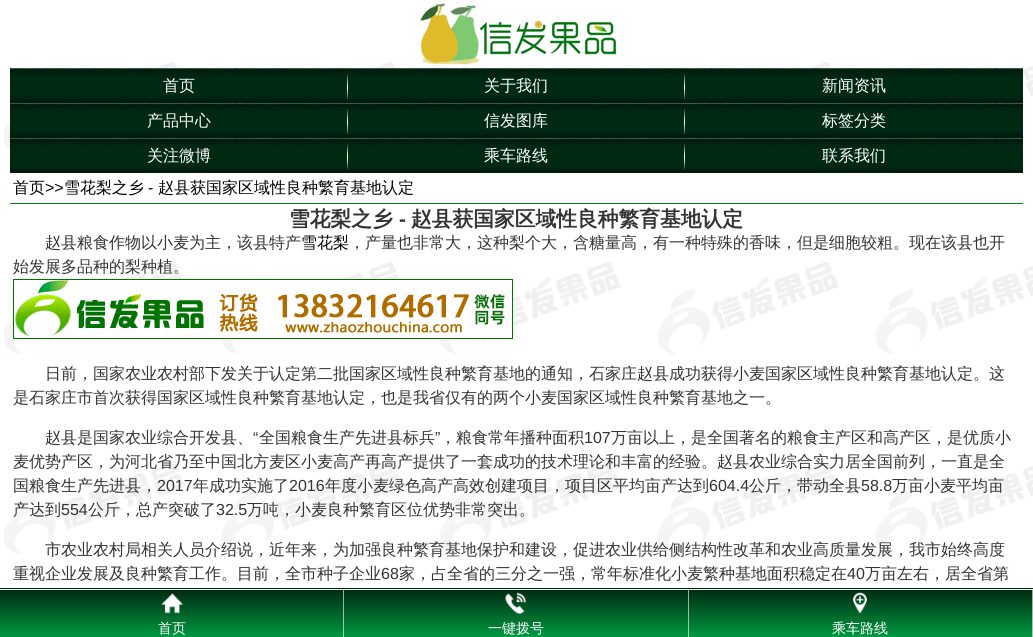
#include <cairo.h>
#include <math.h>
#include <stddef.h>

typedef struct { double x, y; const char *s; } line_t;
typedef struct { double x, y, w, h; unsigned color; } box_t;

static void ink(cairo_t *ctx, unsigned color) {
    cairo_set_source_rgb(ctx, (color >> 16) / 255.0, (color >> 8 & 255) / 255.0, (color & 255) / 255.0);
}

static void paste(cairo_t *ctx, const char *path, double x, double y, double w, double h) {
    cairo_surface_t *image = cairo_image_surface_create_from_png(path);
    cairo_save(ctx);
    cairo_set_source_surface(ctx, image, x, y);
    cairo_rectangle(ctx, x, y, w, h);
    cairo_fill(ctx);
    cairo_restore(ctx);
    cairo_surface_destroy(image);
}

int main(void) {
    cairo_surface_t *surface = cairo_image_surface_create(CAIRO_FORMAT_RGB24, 1033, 637);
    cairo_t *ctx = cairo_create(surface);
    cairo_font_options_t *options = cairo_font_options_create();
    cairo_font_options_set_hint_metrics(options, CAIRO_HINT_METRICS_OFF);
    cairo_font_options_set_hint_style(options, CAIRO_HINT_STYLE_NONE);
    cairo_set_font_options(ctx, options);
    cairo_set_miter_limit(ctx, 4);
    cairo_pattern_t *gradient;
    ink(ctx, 0xFFFFFF);
    cairo_paint(ctx);
    paste(ctx, "media/1.png", 4, 62, 1029, 492);
    paste(ctx, "media/2.png", 420, 3, 197, 65);
    paste(ctx, "media/3.png", 10, 68, 1013, 105);
    paste(ctx, "media/4.png", 347, 73, 1, 26);
    cairo_select_font_face(ctx, "WenQuanYi Zen Hei Medium", CAIRO_FONT_SLANT_NORMAL, CAIRO_FONT_WEIGHT_NORMAL);
    cairo_set_font_size(ctx, 16);
    ink(ctx, 0xFFFFFF);
    cairo_move_to(ctx, 163, 91);
    cairo_show_text(ctx, "首页");
    paste(ctx, "media/4.png", 684, 73, 1, 26);
    cairo_move_to(ctx, 484, 91);
    cairo_show_text(ctx, "关于我们");
    cairo_move_to(ctx, 822, 91);
    cairo_show_text(ctx, "新闻资讯");
    paste(ctx, "media/4.png", 347, 108, 1, 26);
    cairo_move_to(ctx, 147, 126);
    cairo_show_text(ctx, "产品中心");
    paste(ctx, "media/4.png", 684, 108, 1, 26);
    cairo_move_to(ctx, 484, 126);
    cairo_show_text(ctx, "信发图库");
    cairo_move_to(ctx, 822, 126);
    cairo_show_text(ctx, "标签分类");
    paste(ctx, "media/4.png", 347, 143, 1, 26);
    cairo_move_to(ctx, 147, 161);
    cairo_show_text(ctx, "关注微博");
    paste(ctx, "media/4.png", 684, 143, 1, 26);
    cairo_move_to(ctx, 484, 161);
    cairo_show_text(ctx, "乘车路线");
    cairo_move_to(ctx, 822, 161);
    cairo_show_text(ctx, "联系我们");
    ink(ctx, 0x167312);
    cairo_rectangle(ctx, 10, 203, 1013, 1);
    cairo_fill(ctx);
    ink(ctx, 0x000000);
    cairo_move_to(ctx, 13, 193);
    cairo_show_text(ctx, "首页");
    cairo_select_font_face(ctx, "Liberation Sans", CAIRO_FONT_SLANT_NORMAL, CAIRO_FONT_WEIGHT_NORMAL);
    cairo_move_to(ctx, 45, 193);
    cairo_show_text(ctx, ">>");
    cairo_select_font_face(ctx, "WenQuanYi Zen Hei Medium", CAIRO_FONT_SLANT_NORMAL, CAIRO_FONT_WEIGHT_NORMAL);
    cairo_move_to(ctx, 64, 193);
    cairo_show_text(ctx, "雪花梨之乡");
    cairo_select_font_face(ctx, "Liberation Sans", CAIRO_FONT_SLANT_NORMAL, CAIRO_FONT_WEIGHT_NORMAL);
    cairo_move_to(ctx, 148, 193);
    cairo_show_text(ctx, "-");
    cairo_select_font_face(ctx, "WenQuanYi Zen Hei Medium", CAIRO_FONT_SLANT_NORMAL, CAIRO_FONT_WEIGHT_NORMAL);
    cairo_move_to(ctx, 158, 193);
    cairo_show_text(ctx, "赵县获国家区域性良种繁育基地认定");
    cairo_select_font_face(ctx, "WenQuanYi Zen Hei", CAIRO_FONT_SLANT_NORMAL, CAIRO_FONT_WEIGHT_BOLD);
    cairo_set_font_size(ctx, 20.75);
    ink(ctx, 0x333333);
    cairo_move_to(ctx, 289, 226);
    cairo_show_text(ctx, "雪花梨之乡");
    cairo_select_font_face(ctx, "Liberation Sans", CAIRO_FONT_SLANT_NORMAL, CAIRO_FONT_WEIGHT_BOLD);
    cairo_move_to(ctx, 399, 226);
    cairo_show_text(ctx, "-");
    cairo_select_font_face(ctx, "WenQuanYi Zen Hei", CAIRO_FONT_SLANT_NORMAL, CAIRO_FONT_WEIGHT_BOLD);
    cairo_move_to(ctx, 411, 226);
    cairo_show_text(ctx, "赵县获国家区域性良种繁育基地认定");
    cairo_select_font_face(ctx, "WenQuanYi Zen Hei Medium", CAIRO_FONT_SLANT_NORMAL, CAIRO_FONT_WEIGHT_NORMAL);
    cairo_set_font_size(ctx, 16);
    cairo_move_to(ctx, 45, 248);
    cairo_show_text(ctx, "赵县粮食作物以小麦为主，该县特产");
    ink(ctx, 0x000000);
    cairo_move_to(ctx, 301, 248);
    cairo_show_text(ctx, "雪花梨");
    ink(ctx, 0x333333);
    cairo_move_to(ctx, 349, 248);
    cairo_show_text(ctx, "，产量也非常大，这种梨个大，含糖量高，有一种特殊的香味，但是细胞较粗。现在该县也开");
    cairo_move_to(ctx, 13, 272);
    cairo_show_text(ctx, "始发展多品种的梨种植。");
    paste(ctx, "media/5.png", 13, 279, 500, 60);
    {
        static const line_t items[] = {
            {45, 379, "日前，国家农业农村部下发关于认定第二批国家区域性良种繁育基地的通知，石家庄赵县成功获得小麦国家区域性良种繁育基地认定。这"},
            {13, 403, "是石家庄市首次获得国家区域性良种繁育基地认定，也是我省仅有的两个小麦国家区域性良种繁育基地之一。"},
            {45, 443, "赵县是国家农业综合开发县、"},
        };
        for (size_t i = 0; i < sizeof items / sizeof *items; i++) {
            cairo_move_to(ctx, items[i].x, items[i].y);
            cairo_show_text(ctx, items[i].s);
        }
    }
    cairo_select_font_face(ctx, "Liberation Sans", CAIRO_FONT_SLANT_NORMAL, CAIRO_FONT_WEIGHT_NORMAL);
    cairo_move_to(ctx, 253, 443);
    cairo_show_text(ctx, "“");
    cairo_select_font_face(ctx, "WenQuanYi Zen Hei Medium", CAIRO_FONT_SLANT_NORMAL, CAIRO_FONT_WEIGHT_NORMAL);
    cairo_move_to(ctx, 259, 443);
    cairo_show_text(ctx, "全国粮食生产先进县标兵");
    cairo_select_font_face(ctx, "Liberation Sans", CAIRO_FONT_SLANT_NORMAL, CAIRO_FONT_WEIGHT_NORMAL);
    cairo_move_to(ctx, 435, 443);
    cairo_show_text(ctx, "”");
    cairo_select_font_face(ctx, "WenQuanYi Zen Hei Medium", CAIRO_FONT_SLANT_NORMAL, CAIRO_FONT_WEIGHT_NORMAL);
    cairo_move_to(ctx, 440, 443);
    cairo_show_text(ctx, "，粮食常年播种面积");
    cairo_select_font_face(ctx, "Liberation Sans", CAIRO_FONT_SLANT_NORMAL, CAIRO_FONT_WEIGHT_NORMAL);
    cairo_move_to(ctx, 584, 443);
    cairo_show_text(ctx, "107");
    cairo_select_font_face(ctx, "WenQuanYi Zen Hei Medium", CAIRO_FONT_SLANT_NORMAL, CAIRO_FONT_WEIGHT_NORMAL);
    {
        static const line_t items[] = {
            {611, 443, "万亩以上，是全国著名的粮食主产区和高产区，是优质小"},
            {13, 467, "麦优势产区，为河北省乃至中国北方麦区小麦高产再高产提供了一套成功的技术理论和丰富的经验。赵县农业综合实力居全国前列，一直是全"},
            {13, 491, "国粮食生产先进县，"},
        };
        for (size_t i = 0; i < sizeof items / sizeof *items; i++) {
            cairo_move_to(ctx, items[i].x, items[i].y);
            cairo_show_text(ctx, items[i].s);
        }
    }
    cairo_select_font_face(ctx, "Liberation Sans", CAIRO_FONT_SLANT_NORMAL, CAIRO_FONT_WEIGHT_NORMAL);
    cairo_move_to(ctx, 157, 491);
    cairo_show_text(ctx, "2017");
    cairo_select_font_face(ctx, "WenQuanYi Zen Hei Medium", CAIRO_FONT_SLANT_NORMAL, CAIRO_FONT_WEIGHT_NORMAL);
    cairo_move_to(ctx, 193, 491);
    cairo_show_text(ctx, "年成功实施了");
    cairo_select_font_face(ctx, "Liberation Sans", CAIRO_FONT_SLANT_NORMAL, CAIRO_FONT_WEIGHT_NORMAL);
    cairo_move_to(ctx, 289, 491);
    cairo_show_text(ctx, "2016");
    cairo_select_font_face(ctx, "WenQuanYi Zen Hei Medium", CAIRO_FONT_SLANT_NORMAL, CAIRO_FONT_WEIGHT_NORMAL);
    cairo_move_to(ctx, 325, 491);
    cairo_show_text(ctx, "年度小麦绿色高产高效创建项目，项目区平均亩产达到");
    cairo_select_font_face(ctx, "Liberation Sans", CAIRO_FONT_SLANT_NORMAL, CAIRO_FONT_WEIGHT_NORMAL);
    cairo_move_to(ctx, 709, 491);
    cairo_show_text(ctx, "604.4");
    cairo_select_font_face(ctx, "WenQuanYi Zen Hei Medium", CAIRO_FONT_SLANT_NORMAL, CAIRO_FONT_WEIGHT_NORMAL);
    cairo_move_to(ctx, 749, 491);
    cairo_show_text(ctx, "公斤，带动全县");
    cairo_select_font_face(ctx, "Liberation Sans", CAIRO_FONT_SLANT_NORMAL, CAIRO_FONT_WEIGHT_NORMAL);
    cairo_move_to(ctx, 861, 491);
    cairo_show_text(ctx, "58.8");
    cairo_select_font_face(ctx, "WenQuanYi Zen Hei Medium", CAIRO_FONT_SLANT_NORMAL, CAIRO_FONT_WEIGHT_NORMAL);
    cairo_move_to(ctx, 892, 491);
    cairo_show_text(ctx, "万亩小麦平均亩");
    cairo_move_to(ctx, 13, 515);
    cairo_show_text(ctx, "产达到");
    cairo_select_font_face(ctx, "Liberation Sans", CAIRO_FONT_SLANT_NORMAL, CAIRO_FONT_WEIGHT_NORMAL);
    cairo_move_to(ctx, 61, 515);
    cairo_show_text(ctx, "554");
    cairo_select_font_face(ctx, "WenQuanYi Zen Hei Medium", CAIRO_FONT_SLANT_NORMAL, CAIRO_FONT_WEIGHT_NORMAL);
    cairo_move_to(ctx, 88, 515);
    cairo_show_text(ctx, "公斤，总产突破了");
    cairo_select_font_face(ctx, "Liberation Sans", CAIRO_FONT_SLANT_NORMAL, CAIRO_FONT_WEIGHT_NORMAL);
    cairo_move_to(ctx, 216, 515);
    cairo_show_text(ctx, "32.5");
    cairo_select_font_face(ctx, "WenQuanYi Zen Hei Medium", CAIRO_FONT_SLANT_NORMAL, CAIRO_FONT_WEIGHT_NORMAL);
    {
        static const line_t items[] = {
            {247, 515, "万吨，小麦良种繁育区位优势非常突出。"},
            {45, 555, "市农业农村局相关人员介绍说，近年来，为加强良种繁育基地保护和建设，促进农业供给侧结构性改革和农业高质量发展，我市始终高度"},
            {13, 579, "重视企业发展及良种繁育工作。目前，全市种子企业"},
        };
        for (size_t i = 0; i < sizeof items / sizeof *items; i++) {
            cairo_move_to(ctx, items[i].x, items[i].y);
            cairo_show_text(ctx, items[i].s);
        }
    }
    cairo_select_font_face(ctx, "Liberation Sans", CAIRO_FONT_SLANT_NORMAL, CAIRO_FONT_WEIGHT_NORMAL);
    cairo_move_to(ctx, 381, 579);
    cairo_show_text(ctx, "68");
    cairo_select_font_face(ctx, "WenQuanYi Zen Hei Medium", CAIRO_FONT_SLANT_NORMAL, CAIRO_FONT_WEIGHT_NORMAL);
    cairo_move_to(ctx, 399, 579);
    cairo_show_text(ctx, "家，占全省的三分之一强，常年标准化小麦繁种基地面积稳定在");
    cairo_select_font_face(ctx, "Liberation Sans", CAIRO_FONT_SLANT_NORMAL, CAIRO_FONT_WEIGHT_NORMAL);
    cairo_move_to(ctx, 847, 579);
    cairo_show_text(ctx, "40");
    cairo_select_font_face(ctx, "WenQuanYi Zen Hei Medium", CAIRO_FONT_SLANT_NORMAL, CAIRO_FONT_WEIGHT_NORMAL);
    cairo_move_to(ctx, 865, 579);
    cairo_show_text(ctx, "万亩左右，居全省第");
    gradient = cairo_pattern_create_linear(517, 589, 517, 637);
    cairo_pattern_add_color_stop_rgba(gradient, 0, 0, 0.161, 0.067, 1);
    cairo_pattern_add_color_stop_rgba(gradient, 1, 0, 0.6, 0.251, 1);
    cairo_set_source(ctx, gradient);
    cairo_pattern_destroy(gradient);
    cairo_rectangle(ctx, 0, 590, 1032, 47);
    cairo_fill(ctx);
    gradient = cairo_pattern_create_linear(517, 589, 517, 637);
    cairo_pattern_add_color_stop_rgba(gradient, 0, 0.6, 0.663, 0.627, 1);
    cairo_pattern_add_color_stop_rgba(gradient, 1, 0.6, 0.839, 0.702, 1);
    cairo_set_source(ctx, gradient);
    cairo_pattern_destroy(gradient);
    cairo_rectangle(ctx, 1032, 589, 1, 48);
    cairo_fill(ctx);
    cairo_rectangle(ctx, 688, 589, 1, 48);
    cairo_fill(ctx);
    cairo_rectangle(ctx, 343, 589, 1, 48);
    cairo_fill(ctx);
    {
        static const box_t items[] = {
            {0, 589, 1033, 1, 0xEEEEEE},
            {1032, 589, 1, 1, 0xF8F8F8},
            {688, 589, 1, 1, 0xF8F8F8},
            {343, 589, 1, 1, 0xF8F8F8},
            {0, 588, 1033, 1, 0x002911},
        };
        for (size_t i = 0; i < sizeof items / sizeof *items; i++) {
            ink(ctx, items[i].color);
            cairo_rectangle(ctx, items[i].x, items[i].y, items[i].w, items[i].h);
            cairo_fill(ctx);
        }
    }
    paste(ctx, "media/6.png", 161, 593, 22, 21);
    cairo_set_font_size(ctx, 14);
    ink(ctx, 0xFFFFFF);
    cairo_move_to(ctx, 158, 633);
    cairo_show_text(ctx, "首页");
    paste(ctx, "media/7.png", 505, 592, 22, 23);
    cairo_move_to(ctx, 488, 633);
    cairo_show_text(ctx, "一键拨号");
    paste(ctx, "media/8.png", 853, 592, 14, 22);
    cairo_move_to(ctx, 832, 633);
    cairo_show_text(ctx, "乘车路线");
    cairo_surface_write_to_png(surface, "image.png");
    cairo_font_options_destroy(options);
    cairo_destroy(ctx);
    cairo_surface_destroy(surface);
    return 0;
}
